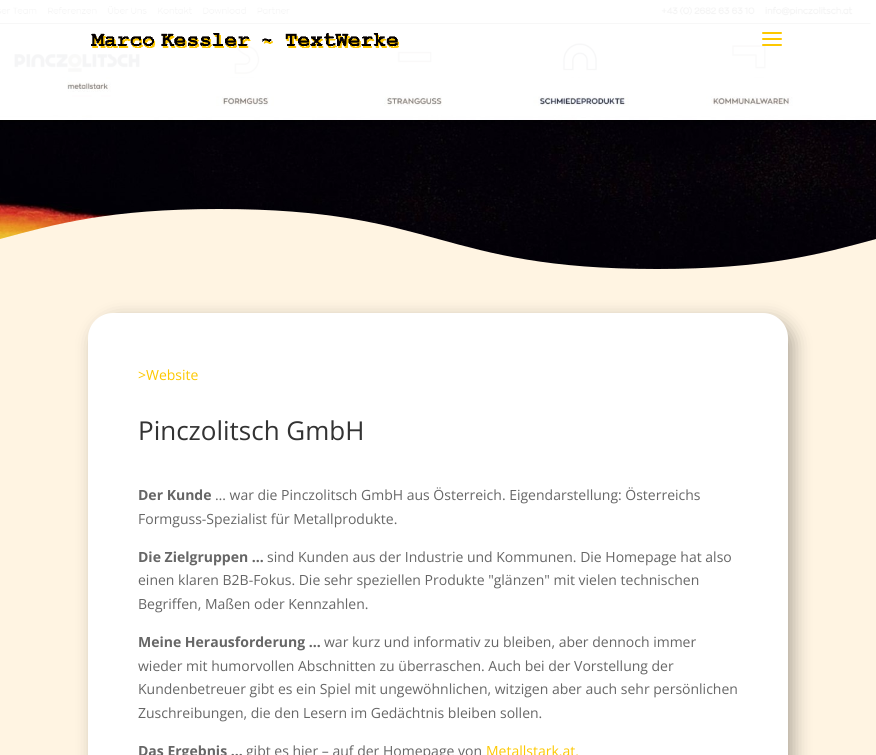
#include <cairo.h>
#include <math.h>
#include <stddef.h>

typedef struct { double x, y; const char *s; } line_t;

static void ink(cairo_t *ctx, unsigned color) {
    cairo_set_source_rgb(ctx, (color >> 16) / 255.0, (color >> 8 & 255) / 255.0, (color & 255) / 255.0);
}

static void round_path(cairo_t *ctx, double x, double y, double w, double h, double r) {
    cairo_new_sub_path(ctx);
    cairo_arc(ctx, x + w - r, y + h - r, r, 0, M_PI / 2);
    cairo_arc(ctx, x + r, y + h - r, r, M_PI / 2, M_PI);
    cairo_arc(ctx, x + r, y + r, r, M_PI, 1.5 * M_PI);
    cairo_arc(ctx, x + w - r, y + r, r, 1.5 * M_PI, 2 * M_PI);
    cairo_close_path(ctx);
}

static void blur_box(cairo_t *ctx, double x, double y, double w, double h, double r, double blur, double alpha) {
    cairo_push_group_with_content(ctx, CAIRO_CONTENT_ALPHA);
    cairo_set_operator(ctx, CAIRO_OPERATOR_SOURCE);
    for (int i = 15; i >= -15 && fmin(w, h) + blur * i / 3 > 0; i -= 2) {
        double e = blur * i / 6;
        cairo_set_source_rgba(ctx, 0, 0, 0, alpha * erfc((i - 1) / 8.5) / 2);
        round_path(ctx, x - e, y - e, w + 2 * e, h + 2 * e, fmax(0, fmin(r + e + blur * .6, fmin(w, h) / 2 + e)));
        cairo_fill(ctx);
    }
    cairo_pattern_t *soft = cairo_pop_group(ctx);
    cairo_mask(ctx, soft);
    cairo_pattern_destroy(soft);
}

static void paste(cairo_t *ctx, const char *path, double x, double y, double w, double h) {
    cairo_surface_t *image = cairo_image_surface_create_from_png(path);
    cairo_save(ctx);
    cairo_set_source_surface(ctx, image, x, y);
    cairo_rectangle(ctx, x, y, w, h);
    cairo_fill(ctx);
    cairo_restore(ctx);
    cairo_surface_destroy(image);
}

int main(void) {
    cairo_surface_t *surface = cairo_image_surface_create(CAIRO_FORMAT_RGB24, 876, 755);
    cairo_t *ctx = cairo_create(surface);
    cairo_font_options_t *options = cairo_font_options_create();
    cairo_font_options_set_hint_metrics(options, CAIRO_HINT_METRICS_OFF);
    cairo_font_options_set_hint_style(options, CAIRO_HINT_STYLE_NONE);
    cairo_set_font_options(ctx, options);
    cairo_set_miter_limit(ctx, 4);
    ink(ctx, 0xFFFFFF);
    cairo_paint(ctx);
    paste(ctx, "media/3.png", 0, 5, 876, 264);
    cairo_set_source_rgba(ctx, 1, 1, 1, 0.95);
    cairo_rectangle(ctx, 0, 5, 874, 72);
    cairo_fill(ctx);
    paste(ctx, "media/1.png", 91, 33, 308, 15);
    paste(ctx, "media/2.png", 762, 32, 20, 14);
    ink(ctx, 0xFFF4E2);
    cairo_new_path(ctx);
    cairo_move_to(ctx, 219, 209);
    cairo_curve_to(ctx, 438, 209, 438, 269, 657, 269);
    cairo_curve_to(ctx, 766, 269, 821, 254, 876, 239);
    cairo_line_to(ctx, 876, 289);
    cairo_line_to(ctx, 0, 289);
    cairo_line_to(ctx, 0, 239);
    cairo_curve_to(ctx, 55, 224, 110, 209, 219, 209);
    cairo_close_path(ctx);
    cairo_fill(ctx);
    cairo_rectangle(ctx, 0, 289, 876, 466);
    cairo_fill(ctx);
    ink(ctx, 0x000000);
    blur_box(ctx, 94, 319, 700, 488, 25, 9, 0.3);
    ink(ctx, 0xFFFFFF);
    round_path(ctx, 88, 313, 700, 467, 25);
    cairo_fill(ctx);
    cairo_select_font_face(ctx, "Open Sans", CAIRO_FONT_SLANT_NORMAL, CAIRO_FONT_WEIGHT_NORMAL);
    cairo_set_font_size(ctx, 14);
    ink(ctx, 0xFDC800);
    cairo_move_to(ctx, 138, 380);
    cairo_show_text(ctx, ">Website");
    cairo_set_font_size(ctx, 26);
    ink(ctx, 0x333333);
    cairo_move_to(ctx, 138, 440);
    cairo_show_text(ctx, "Pinczolitsch GmbH");
    cairo_select_font_face(ctx, "Open Sans", CAIRO_FONT_SLANT_NORMAL, CAIRO_FONT_WEIGHT_BOLD);
    cairo_set_font_size(ctx, 14);
    ink(ctx, 0x666666);
    cairo_move_to(ctx, 138, 500);
    cairo_show_text(ctx, "Der Kunde");
    cairo_select_font_face(ctx, "Open Sans", CAIRO_FONT_SLANT_NORMAL, CAIRO_FONT_WEIGHT_NORMAL);
    cairo_move_to(ctx, 215, 500);
    cairo_show_text(ctx, "… war die Pinczolitsch GmbH aus Österreich. Eigendarstellung: Österreichs");
    cairo_move_to(ctx, 138, 524);
    cairo_show_text(ctx, "Formguss-Spezialist für Metallprodukte.");
    cairo_select_font_face(ctx, "Open Sans", CAIRO_FONT_SLANT_NORMAL, CAIRO_FONT_WEIGHT_BOLD);
    cairo_move_to(ctx, 138, 562);
    cairo_show_text(ctx, "Die Zielgruppen …");
    cairo_select_font_face(ctx, "Open Sans", CAIRO_FONT_SLANT_NORMAL, CAIRO_FONT_WEIGHT_NORMAL);
    {
        static const line_t items[] = {
            {267, 562, "sind Kunden aus der Industrie und Kommunen. Die Homepage hat also"},
            {138, 585, "einen klaren B2B-Fokus. Die sehr speziellen Produkte \"glänzen\" mit vielen technischen"},
            {138, 609, "Begriffen, Maßen oder Kennzahlen."},
        };
        for (size_t i = 0; i < sizeof items / sizeof *items; i++) {
            cairo_move_to(ctx, items[i].x, items[i].y);
            cairo_show_text(ctx, items[i].s);
        }
    }
    cairo_select_font_face(ctx, "Open Sans", CAIRO_FONT_SLANT_NORMAL, CAIRO_FONT_WEIGHT_BOLD);
    cairo_move_to(ctx, 138, 647);
    cairo_show_text(ctx, "Meine Herausforderung …");
    cairo_select_font_face(ctx, "Open Sans", CAIRO_FONT_SLANT_NORMAL, CAIRO_FONT_WEIGHT_NORMAL);
    {
        static const line_t items[] = {
            {324, 647, "war kurz und informativ zu bleiben, aber dennoch immer"},
            {138, 671, "wieder mit humorvollen Abschnitten zu überraschen. Auch bei der Vorstellung der"},
            {138, 694, "Kundenbetreuer gibt es ein Spiel mit ungewöhnlichen, witzigen aber auch sehr persönlichen"},
            {138, 718, "Zuschreibungen, die den Lesern im Gedächtnis bleiben sollen."},
        };
        for (size_t i = 0; i < sizeof items / sizeof *items; i++) {
            cairo_move_to(ctx, items[i].x, items[i].y);
            cairo_show_text(ctx, items[i].s);
        }
    }
    cairo_select_font_face(ctx, "Open Sans", CAIRO_FONT_SLANT_NORMAL, CAIRO_FONT_WEIGHT_BOLD);
    cairo_move_to(ctx, 138, 756);
    cairo_show_text(ctx, "Das Ergebnis …");
    cairo_select_font_face(ctx, "Open Sans", CAIRO_FONT_SLANT_NORMAL, CAIRO_FONT_WEIGHT_NORMAL);
    cairo_move_to(ctx, 246, 756);
    cairo_show_text(ctx, "gibt es hier – auf der Homepage von");
    ink(ctx, 0xFDC800);
    cairo_move_to(ctx, 486, 756);
    cairo_show_text(ctx, "Metallstark.at.");
    cairo_surface_write_to_png(surface, "image.png");
    cairo_font_options_destroy(options);
    cairo_destroy(ctx);
    cairo_surface_destroy(surface);
    return 0;
}
